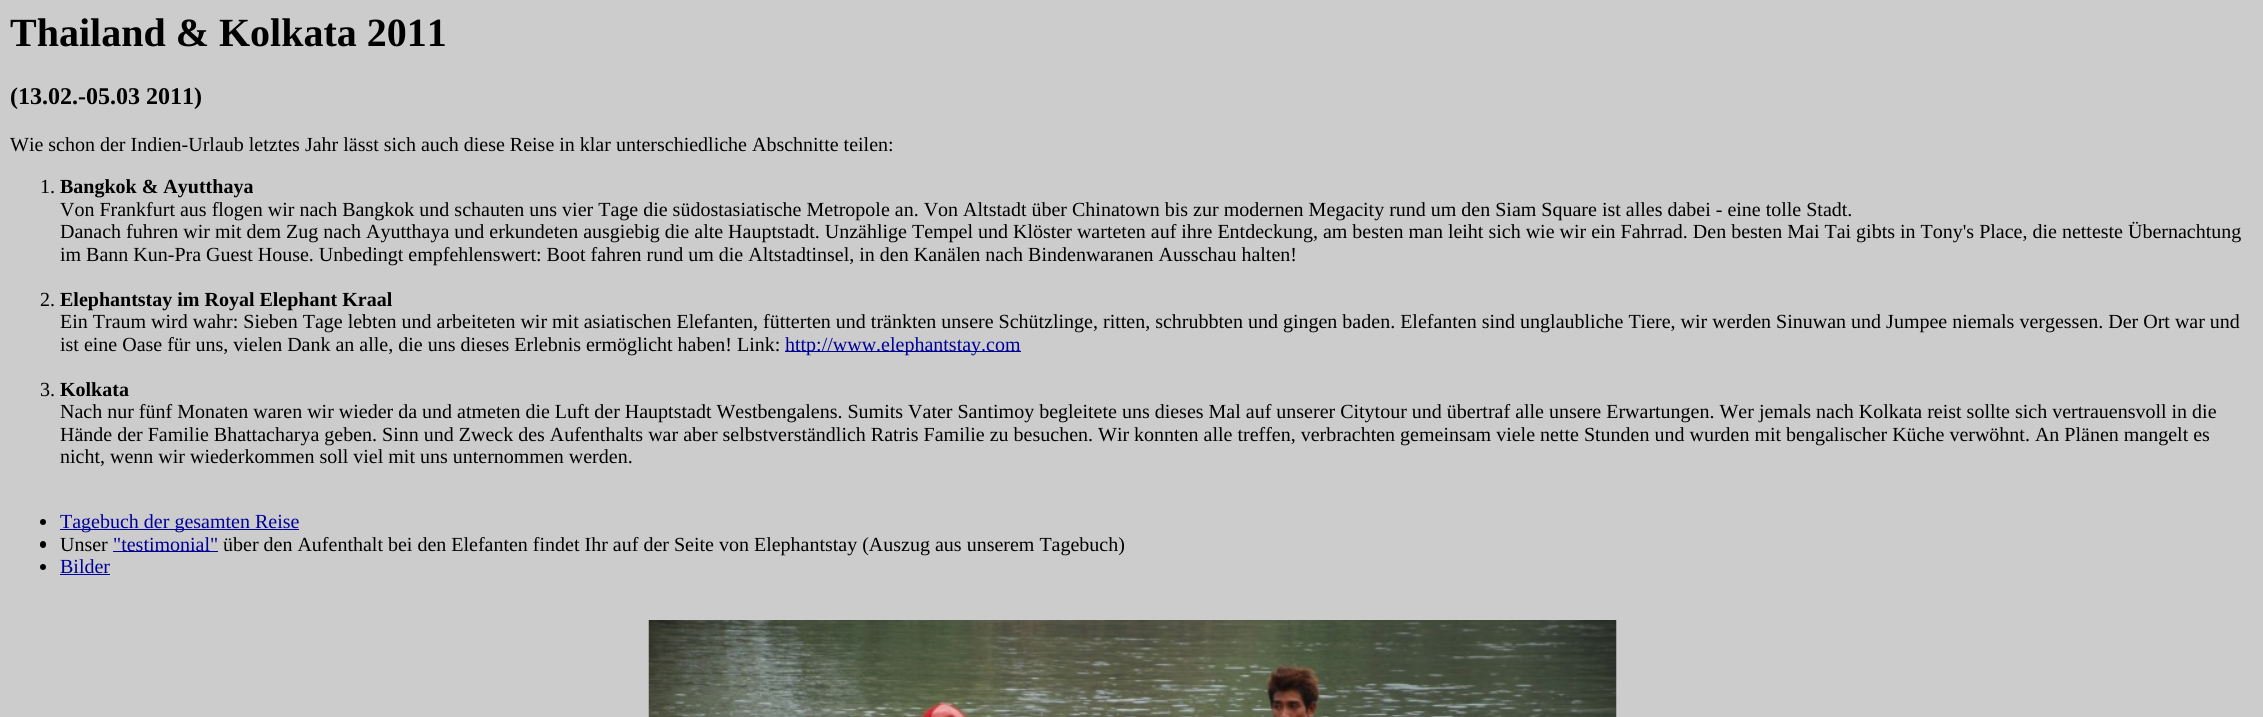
#include <cairo.h>
#include <math.h>
#include <stddef.h>

typedef struct { double x, y; const char *s; } line_t;

static void ink(cairo_t *ctx, unsigned color) {
    cairo_set_source_rgb(ctx, (color >> 16) / 255.0, (color >> 8 & 255) / 255.0, (color & 255) / 255.0);
}

static void round_path(cairo_t *ctx, double x, double y, double w, double h, double r) {
    cairo_new_sub_path(ctx);
    cairo_arc(ctx, x + w - r, y + h - r, r, 0, M_PI / 2);
    cairo_arc(ctx, x + r, y + h - r, r, M_PI / 2, M_PI);
    cairo_arc(ctx, x + r, y + r, r, M_PI, 1.5 * M_PI);
    cairo_arc(ctx, x + w - r, y + r, r, 1.5 * M_PI, 2 * M_PI);
    cairo_close_path(ctx);
}

static void paste(cairo_t *ctx, const char *path, double x, double y, double w, double h) {
    cairo_surface_t *image = cairo_image_surface_create_from_png(path);
    cairo_save(ctx);
    cairo_set_source_surface(ctx, image, x, y);
    cairo_rectangle(ctx, x, y, w, h);
    cairo_fill(ctx);
    cairo_restore(ctx);
    cairo_surface_destroy(image);
}

int main(void) {
    cairo_surface_t *surface = cairo_image_surface_create(CAIRO_FORMAT_RGB24, 2263, 717);
    cairo_t *ctx = cairo_create(surface);
    cairo_font_options_t *options = cairo_font_options_create();
    cairo_font_options_set_hint_metrics(options, CAIRO_HINT_METRICS_OFF);
    cairo_font_options_set_hint_style(options, CAIRO_HINT_STYLE_NONE);
    cairo_set_font_options(ctx, options);
    cairo_set_miter_limit(ctx, 4);
    ink(ctx, 0xCCCCCC);
    cairo_paint(ctx);
    cairo_select_font_face(ctx, "Liberation Serif", CAIRO_FONT_SLANT_NORMAL, CAIRO_FONT_WEIGHT_BOLD);
    cairo_set_font_size(ctx, 40);
    ink(ctx, 0x000000);
    cairo_move_to(ctx, 10, 46);
    cairo_show_text(ctx, "Thailand & Kolkata 2011");
    cairo_set_font_size(ctx, 24);
    cairo_move_to(ctx, 10, 104);
    cairo_show_text(ctx, "(13.02.-05.03 2011)");
    cairo_select_font_face(ctx, "Liberation Serif", CAIRO_FONT_SLANT_NORMAL, CAIRO_FONT_WEIGHT_NORMAL);
    cairo_set_font_size(ctx, 20);
    cairo_move_to(ctx, 10, 151);
    cairo_show_text(ctx, "Wie schon der Indien-Urlaub letztes Jahr lässt sich auch diese Reise in klar unterschiedliche Abschnitte teilen:");
    cairo_move_to(ctx, 40, 193);
    cairo_show_text(ctx, "1.");
    cairo_select_font_face(ctx, "Liberation Serif", CAIRO_FONT_SLANT_NORMAL, CAIRO_FONT_WEIGHT_BOLD);
    cairo_move_to(ctx, 60, 193);
    cairo_show_text(ctx, "Bangkok & Ayutthaya");
    cairo_select_font_face(ctx, "Liberation Serif", CAIRO_FONT_SLANT_NORMAL, CAIRO_FONT_WEIGHT_NORMAL);
    {
        static const line_t items[] = {
            {60, 216, "Von Frankfurt aus flogen wir nach Bangkok und schauten uns vier Tage die südostasiatische Metropole an. Von Altstadt über Chinatown bis zur modernen Megacity rund um den Siam Square ist alles dabei - eine tolle Stadt."},
            {60, 238, "Danach fuhren wir mit dem Zug nach Ayutthaya und erkundeten ausgiebig die alte Hauptstadt. Unzählige Tempel und Klöster warteten auf ihre Entdeckung, am besten man leiht sich wie wir ein Fahrrad. Den besten Mai Tai gibts in Tony's Place, die netteste Übernachtung"},
            {60, 261, "im Bann Kun-Pra Guest House. Unbedingt empfehlenswert: Boot fahren rund um die Altstadtinsel, in den Kanälen nach Bindenwaranen Ausschau halten!"},
            {40, 306, "2."},
        };
        for (size_t i = 0; i < sizeof items / sizeof *items; i++) {
            cairo_move_to(ctx, items[i].x, items[i].y);
            cairo_show_text(ctx, items[i].s);
        }
    }
    cairo_select_font_face(ctx, "Liberation Serif", CAIRO_FONT_SLANT_NORMAL, CAIRO_FONT_WEIGHT_BOLD);
    cairo_move_to(ctx, 60, 306);
    cairo_show_text(ctx, "Elephantstay im Royal Elephant Kraal");
    cairo_select_font_face(ctx, "Liberation Serif", CAIRO_FONT_SLANT_NORMAL, CAIRO_FONT_WEIGHT_NORMAL);
    cairo_move_to(ctx, 60, 328);
    cairo_show_text(ctx, "Ein Traum wird wahr: Sieben Tage lebten und arbeiteten wir mit asiatischen Elefanten, fütterten und tränkten unsere Schützlinge, ritten, schrubbten und gingen baden. Elefanten sind unglaubliche Tiere, wir werden Sinuwan und Jumpee niemals vergessen. Der Ort war und");
    cairo_move_to(ctx, 60, 351);
    cairo_show_text(ctx, "ist eine Oase für uns, vielen Dank an alle, die uns dieses Erlebnis ermöglicht haben! Link:");
    ink(ctx, 0x000099);
    cairo_rectangle(ctx, 785, 351, 236, 1);
    cairo_fill(ctx);
    cairo_move_to(ctx, 785, 351);
    cairo_show_text(ctx, "http://www.elephantstay.com");
    ink(ctx, 0x000000);
    cairo_move_to(ctx, 40, 396);
    cairo_show_text(ctx, "3.");
    cairo_select_font_face(ctx, "Liberation Serif", CAIRO_FONT_SLANT_NORMAL, CAIRO_FONT_WEIGHT_BOLD);
    cairo_move_to(ctx, 60, 396);
    cairo_show_text(ctx, "Kolkata");
    cairo_select_font_face(ctx, "Liberation Serif", CAIRO_FONT_SLANT_NORMAL, CAIRO_FONT_WEIGHT_NORMAL);
    {
        static const line_t items[] = {
            {60, 418, "Nach nur fünf Monaten waren wir wieder da und atmeten die Luft der Hauptstadt Westbengalens. Sumits Vater Santimoy begleitete uns dieses Mal auf unserer Citytour und übertraf alle unsere Erwartungen. Wer jemals nach Kolkata reist sollte sich vertrauensvoll in die"},
            {60, 441, "Hände der Familie Bhattacharya geben. Sinn und Zweck des Aufenthalts war aber selbstverständlich Ratris Familie zu besuchen. Wir konnten alle treffen, verbrachten gemeinsam viele nette Stunden und wurden mit bengalischer Küche verwöhnt. An Plänen mangelt es"},
            {60, 463, "nicht, wenn wir wiederkommen soll viel mit uns unternommen werden."},
        };
        for (size_t i = 0; i < sizeof items / sizeof *items; i++) {
            cairo_move_to(ctx, items[i].x, items[i].y);
            cairo_show_text(ctx, items[i].s);
        }
    }
    cairo_new_path(ctx);
    cairo_arc(ctx, 43, 522, 3, 0, 2 * M_PI);
    cairo_fill(ctx);
    ink(ctx, 0x000099);
    cairo_rectangle(ctx, 60, 529, 239, 1);
    cairo_fill(ctx);
    cairo_move_to(ctx, 60, 528);
    cairo_show_text(ctx, "Tagebuch der gesamten Reise");
    ink(ctx, 0x000000);
    round_path(ctx, 40, 541, 6, 7, 3);
    cairo_fill(ctx);
    cairo_move_to(ctx, 60, 551);
    cairo_show_text(ctx, "Unser");
    ink(ctx, 0x000099);
    cairo_rectangle(ctx, 113, 551, 105, 1);
    cairo_fill(ctx);
    cairo_move_to(ctx, 113, 551);
    cairo_show_text(ctx, "\"testimonial\"");
    ink(ctx, 0x000000);
    cairo_move_to(ctx, 223, 551);
    cairo_show_text(ctx, "über den Aufenthalt bei den Elefanten findet Ihr auf der Seite von Elephantstay (Auszug aus unserem Tagebuch)");
    cairo_new_path(ctx);
    cairo_arc(ctx, 43, 567, 3, 0, 2 * M_PI);
    cairo_fill(ctx);
    ink(ctx, 0x000099);
    cairo_move_to(ctx, 60, 573);
    cairo_show_text(ctx, "Bilder");
    cairo_rectangle(ctx, 60, 574, 50, 1);
    cairo_fill(ctx);
    paste(ctx, "media/1.png", 648, 620, 969, 97);
    cairo_surface_write_to_png(surface, "image.png");
    cairo_font_options_destroy(options);
    cairo_destroy(ctx);
    cairo_surface_destroy(surface);
    return 0;
}
